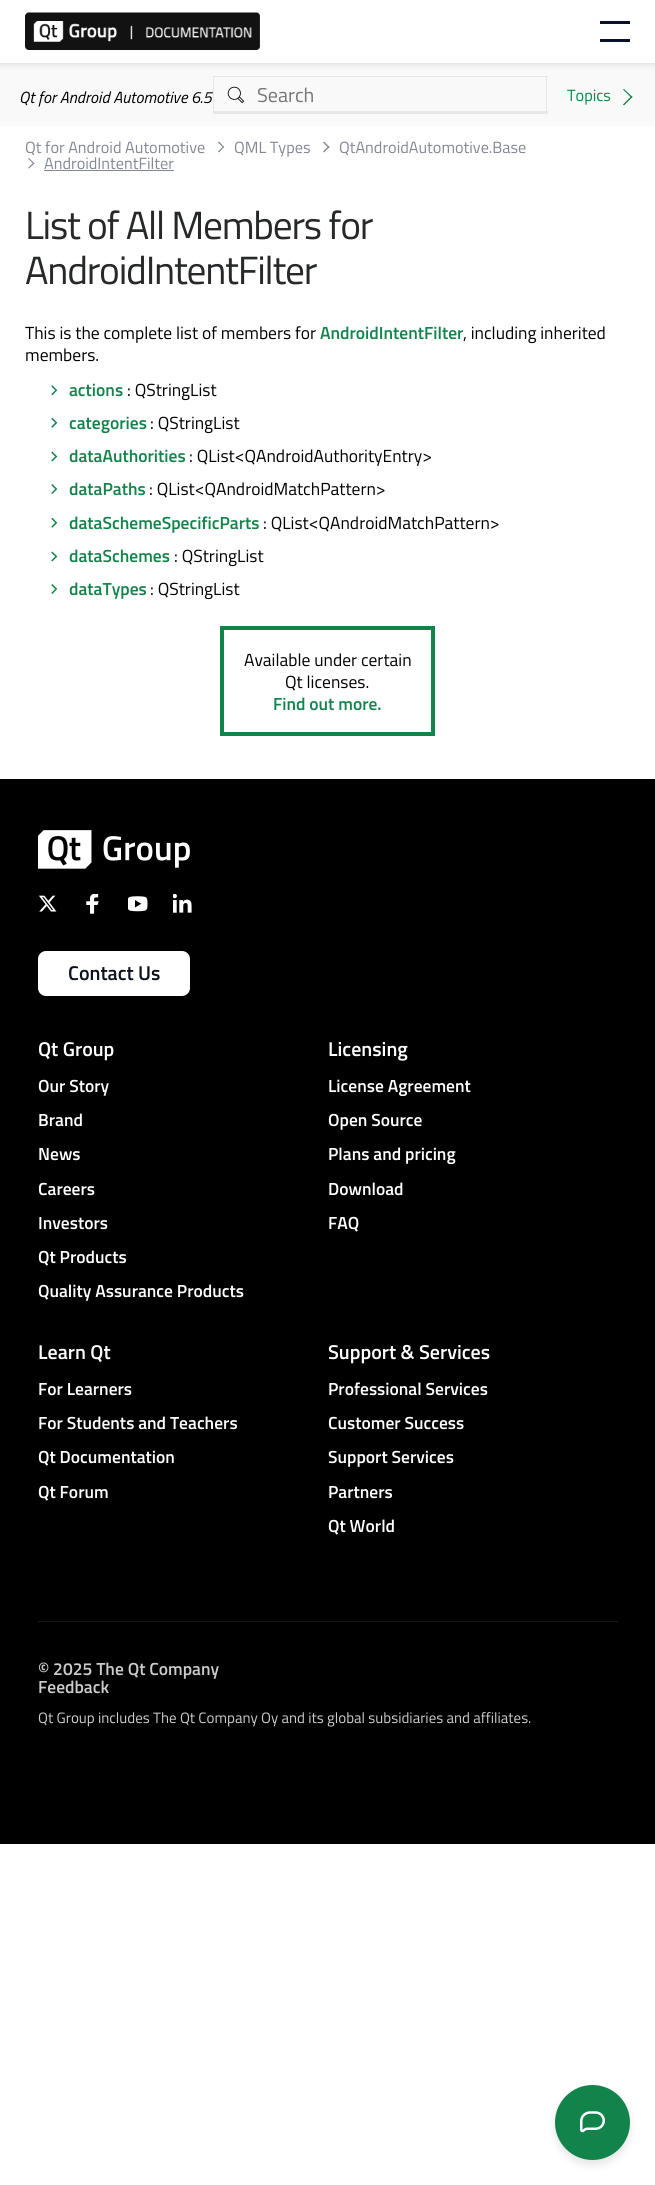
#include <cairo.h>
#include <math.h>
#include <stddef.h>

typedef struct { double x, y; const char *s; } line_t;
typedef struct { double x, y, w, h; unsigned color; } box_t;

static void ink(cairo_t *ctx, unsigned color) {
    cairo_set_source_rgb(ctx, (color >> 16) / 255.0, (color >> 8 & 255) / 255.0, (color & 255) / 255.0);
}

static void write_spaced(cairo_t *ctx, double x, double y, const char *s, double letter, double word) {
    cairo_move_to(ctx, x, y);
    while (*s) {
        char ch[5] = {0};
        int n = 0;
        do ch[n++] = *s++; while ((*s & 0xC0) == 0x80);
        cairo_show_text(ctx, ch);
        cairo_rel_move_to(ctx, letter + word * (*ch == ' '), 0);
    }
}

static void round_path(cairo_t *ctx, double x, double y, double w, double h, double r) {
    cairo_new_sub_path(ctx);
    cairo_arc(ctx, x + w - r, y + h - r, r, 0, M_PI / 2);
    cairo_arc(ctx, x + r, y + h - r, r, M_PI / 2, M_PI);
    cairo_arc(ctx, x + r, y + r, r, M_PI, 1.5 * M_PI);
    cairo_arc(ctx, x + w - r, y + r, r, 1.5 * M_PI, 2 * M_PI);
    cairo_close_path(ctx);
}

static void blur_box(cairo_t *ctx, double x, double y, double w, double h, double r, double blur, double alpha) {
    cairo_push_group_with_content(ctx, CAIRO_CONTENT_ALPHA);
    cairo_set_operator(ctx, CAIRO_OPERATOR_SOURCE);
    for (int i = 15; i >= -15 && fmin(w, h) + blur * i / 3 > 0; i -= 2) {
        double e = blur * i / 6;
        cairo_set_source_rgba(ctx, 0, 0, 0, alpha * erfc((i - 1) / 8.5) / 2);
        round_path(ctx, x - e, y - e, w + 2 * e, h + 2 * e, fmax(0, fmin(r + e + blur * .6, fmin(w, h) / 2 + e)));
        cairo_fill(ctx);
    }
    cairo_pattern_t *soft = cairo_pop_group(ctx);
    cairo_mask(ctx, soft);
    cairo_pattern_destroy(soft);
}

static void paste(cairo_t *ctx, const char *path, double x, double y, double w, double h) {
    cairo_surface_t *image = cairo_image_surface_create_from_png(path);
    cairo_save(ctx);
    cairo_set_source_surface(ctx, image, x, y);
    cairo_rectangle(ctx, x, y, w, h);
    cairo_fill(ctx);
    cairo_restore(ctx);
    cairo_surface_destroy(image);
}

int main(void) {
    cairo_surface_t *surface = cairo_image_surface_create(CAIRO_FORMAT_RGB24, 655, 2185);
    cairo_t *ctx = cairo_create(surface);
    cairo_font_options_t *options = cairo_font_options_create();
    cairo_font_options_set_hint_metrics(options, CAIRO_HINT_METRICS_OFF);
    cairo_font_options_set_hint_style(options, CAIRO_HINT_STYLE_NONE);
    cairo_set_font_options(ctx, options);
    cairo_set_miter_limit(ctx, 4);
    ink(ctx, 0xFFFFFF);
    cairo_paint(ctx);
    ink(ctx, 0xF9F9F9);
    cairo_rectangle(ctx, 0, 64, 655, 62);
    cairo_fill(ctx);
    ink(ctx, 0x09102B);
    blur_box(ctx, 0, 1, 655, 64, 0, 3, 0.1);
    ink(ctx, 0xFFFFFF);
    cairo_rectangle(ctx, 0, 0, 655, 63);
    cairo_fill(ctx);
    ink(ctx, 0xE8E8E8);
    cairo_rectangle(ctx, 0, 63, 655, 1);
    cairo_fill(ctx);
    paste(ctx, "media/1.png", 25, 12, 235, 38);
    ink(ctx, 0x09102B);
    cairo_rectangle(ctx, 600, 21, 30, 3);
    cairo_fill(ctx);
    cairo_rectangle(ctx, 600, 39, 30, 3);
    cairo_fill(ctx);
    paste(ctx, "media/2.png", 227, 86, 17, 17);
    {
        static const box_t items[] = {
            {213, 76, 335, 1, 0xE6E7E9},
            {546, 76, 1, 38, 0xE6E7E9},
            {213, 111, 335, 3, 0xE6E7E9},
            {213, 76, 1, 38, 0xE6E7E9},
        };
        for (size_t i = 0; i < sizeof items / sizeof *items; i++) {
            ink(ctx, items[i].color);
            cairo_rectangle(ctx, items[i].x, items[i].y, items[i].w, items[i].h);
            cairo_fill(ctx);
        }
    }
    cairo_select_font_face(ctx, "Titillium Web", CAIRO_FONT_SLANT_NORMAL, CAIRO_FONT_WEIGHT_NORMAL);
    cairo_set_font_size(ctx, 20);
    ink(ctx, 0x757575);
    cairo_move_to(ctx, 257, 102);
    cairo_show_text(ctx, "Search");
    cairo_set_font_size(ctx, 16.25);
    ink(ctx, 0x848895);
    cairo_move_to(ctx, 25, 153);
    cairo_show_text(ctx, "Qt for Android Automotive");
    cairo_new_path(ctx);
    cairo_move_to(ctx, 218, 142.5);
    cairo_line_to(ctx, 219, 141.5);
    cairo_line_to(ctx, 224, 147);
    cairo_line_to(ctx, 223.5, 148);
    cairo_close_path(ctx);
    cairo_fill(ctx);
    cairo_new_path(ctx);
    cairo_move_to(ctx, 218, 151.5);
    cairo_line_to(ctx, 223.5, 146);
    cairo_line_to(ctx, 224, 147);
    cairo_line_to(ctx, 219, 152.5);
    cairo_close_path(ctx);
    cairo_fill(ctx);
    cairo_move_to(ctx, 234, 153);
    cairo_show_text(ctx, "QML Types");
    cairo_new_path(ctx);
    cairo_move_to(ctx, 323, 142.5);
    cairo_line_to(ctx, 324, 141.5);
    cairo_line_to(ctx, 329.5, 147);
    cairo_line_to(ctx, 328.5, 148);
    cairo_close_path(ctx);
    cairo_fill(ctx);
    cairo_new_path(ctx);
    cairo_move_to(ctx, 323, 151.5);
    cairo_line_to(ctx, 328.5, 146);
    cairo_line_to(ctx, 329.5, 147);
    cairo_line_to(ctx, 324, 152.5);
    cairo_close_path(ctx);
    cairo_fill(ctx);
    cairo_move_to(ctx, 339, 153);
    cairo_show_text(ctx, "QtAndroidAutomotive.Base");
    cairo_new_path(ctx);
    cairo_move_to(ctx, 28, 158.5);
    cairo_line_to(ctx, 29, 158);
    cairo_line_to(ctx, 34.5, 163.5);
    cairo_line_to(ctx, 33.5, 164);
    cairo_close_path(ctx);
    cairo_fill(ctx);
    cairo_new_path(ctx);
    cairo_move_to(ctx, 28, 168);
    cairo_line_to(ctx, 33.5, 162.5);
    cairo_line_to(ctx, 34.5, 163.5);
    cairo_line_to(ctx, 29, 168.5);
    cairo_close_path(ctx);
    cairo_fill(ctx);
    cairo_move_to(ctx, 44, 169);
    cairo_show_text(ctx, "AndroidIntentFilter");
    cairo_rectangle(ctx, 44, 170, 130, 1);
    cairo_fill(ctx);
    cairo_set_font_size(ctx, 39.4);
    ink(ctx, 0x26282A);
    write_spaced(ctx, 25, 239, "List of All Members for", -1.25, 0);
    write_spaced(ctx, 25, 284, "AndroidIntentFilter", -1.25, 0);
    cairo_set_font_size(ctx, 17.5);
    ink(ctx, 0x000000);
    cairo_move_to(ctx, 25, 339);
    cairo_show_text(ctx, "This is the complete list of members for");
    cairo_select_font_face(ctx, "Titillium Web SemiBold", CAIRO_FONT_SLANT_NORMAL, CAIRO_FONT_WEIGHT_NORMAL);
    ink(ctx, 0x12834B);
    cairo_move_to(ctx, 320, 339);
    cairo_show_text(ctx, "AndroidIntentFilter");
    cairo_select_font_face(ctx, "Titillium Web", CAIRO_FONT_SLANT_NORMAL, CAIRO_FONT_WEIGHT_NORMAL);
    ink(ctx, 0x000000);
    cairo_move_to(ctx, 463, 339);
    cairo_show_text(ctx, ", including inherited");
    cairo_move_to(ctx, 25, 361);
    cairo_show_text(ctx, "members.");
    paste(ctx, "media/3.png", 51, 385, 7, 11);
    cairo_select_font_face(ctx, "Titillium Web SemiBold", CAIRO_FONT_SLANT_NORMAL, CAIRO_FONT_WEIGHT_NORMAL);
    ink(ctx, 0x12834B);
    cairo_move_to(ctx, 69, 396);
    cairo_show_text(ctx, "actions");
    cairo_select_font_face(ctx, "Titillium Web", CAIRO_FONT_SLANT_NORMAL, CAIRO_FONT_WEIGHT_NORMAL);
    ink(ctx, 0x000000);
    cairo_move_to(ctx, 127, 396);
    cairo_show_text(ctx, ": QStringList");
    paste(ctx, "media/4.png", 51, 417, 7, 11);
    cairo_select_font_face(ctx, "Titillium Web SemiBold", CAIRO_FONT_SLANT_NORMAL, CAIRO_FONT_WEIGHT_NORMAL);
    ink(ctx, 0x12834B);
    cairo_move_to(ctx, 69, 429);
    cairo_show_text(ctx, "categories");
    cairo_select_font_face(ctx, "Titillium Web", CAIRO_FONT_SLANT_NORMAL, CAIRO_FONT_WEIGHT_NORMAL);
    ink(ctx, 0x000000);
    cairo_move_to(ctx, 150, 429);
    cairo_show_text(ctx, ": QStringList");
    paste(ctx, "media/5.png", 51, 451, 7, 11);
    cairo_select_font_face(ctx, "Titillium Web SemiBold", CAIRO_FONT_SLANT_NORMAL, CAIRO_FONT_WEIGHT_NORMAL);
    ink(ctx, 0x12834B);
    cairo_move_to(ctx, 69, 462);
    cairo_show_text(ctx, "dataAuthorities");
    cairo_select_font_face(ctx, "Titillium Web", CAIRO_FONT_SLANT_NORMAL, CAIRO_FONT_WEIGHT_NORMAL);
    ink(ctx, 0x000000);
    cairo_move_to(ctx, 189, 462);
    cairo_show_text(ctx, ": QList<QAndroidAuthorityEntry>");
    paste(ctx, "media/6.png", 51, 484, 7, 10);
    cairo_select_font_face(ctx, "Titillium Web SemiBold", CAIRO_FONT_SLANT_NORMAL, CAIRO_FONT_WEIGHT_NORMAL);
    ink(ctx, 0x12834B);
    cairo_move_to(ctx, 69, 495);
    cairo_show_text(ctx, "dataPaths");
    cairo_select_font_face(ctx, "Titillium Web", CAIRO_FONT_SLANT_NORMAL, CAIRO_FONT_WEIGHT_NORMAL);
    ink(ctx, 0x000000);
    cairo_move_to(ctx, 149, 495);
    cairo_show_text(ctx, ": QList<QAndroidMatchPattern>");
    paste(ctx, "media/4.png", 51, 517, 7, 11);
    cairo_select_font_face(ctx, "Titillium Web SemiBold", CAIRO_FONT_SLANT_NORMAL, CAIRO_FONT_WEIGHT_NORMAL);
    ink(ctx, 0x12834B);
    cairo_move_to(ctx, 69, 529);
    cairo_show_text(ctx, "dataSchemeSpecificParts");
    cairo_select_font_face(ctx, "Titillium Web", CAIRO_FONT_SLANT_NORMAL, CAIRO_FONT_WEIGHT_NORMAL);
    ink(ctx, 0x000000);
    cairo_move_to(ctx, 263, 529);
    cairo_show_text(ctx, ": QList<QAndroidMatchPattern>");
    paste(ctx, "media/5.png", 51, 551, 7, 11);
    cairo_select_font_face(ctx, "Titillium Web SemiBold", CAIRO_FONT_SLANT_NORMAL, CAIRO_FONT_WEIGHT_NORMAL);
    ink(ctx, 0x12834B);
    cairo_move_to(ctx, 69, 562);
    cairo_show_text(ctx, "dataSchemes");
    cairo_select_font_face(ctx, "Titillium Web", CAIRO_FONT_SLANT_NORMAL, CAIRO_FONT_WEIGHT_NORMAL);
    ink(ctx, 0x000000);
    cairo_move_to(ctx, 174, 562);
    cairo_show_text(ctx, ": QStringList");
    paste(ctx, "media/6.png", 51, 584, 7, 10);
    cairo_select_font_face(ctx, "Titillium Web SemiBold", CAIRO_FONT_SLANT_NORMAL, CAIRO_FONT_WEIGHT_NORMAL);
    ink(ctx, 0x12834B);
    cairo_move_to(ctx, 69, 595);
    cairo_show_text(ctx, "dataTypes");
    cairo_select_font_face(ctx, "Titillium Web", CAIRO_FONT_SLANT_NORMAL, CAIRO_FONT_WEIGHT_NORMAL);
    ink(ctx, 0x000000);
    cairo_move_to(ctx, 150, 595);
    cairo_show_text(ctx, ": QStringList");
    cairo_rectangle(ctx, 222, 628, 211, 106);
    ink(ctx, 0x12834B);
    cairo_set_line_width(ctx, 4);
    cairo_stroke(ctx);
    ink(ctx, 0x000000);
    cairo_move_to(ctx, 244, 666);
    cairo_show_text(ctx, "Available under certain");
    cairo_move_to(ctx, 285, 688);
    cairo_show_text(ctx, "Qt licenses.");
    cairo_select_font_face(ctx, "Titillium Web SemiBold", CAIRO_FONT_SLANT_NORMAL, CAIRO_FONT_WEIGHT_NORMAL);
    ink(ctx, 0x12834B);
    cairo_move_to(ctx, 273, 710);
    cairo_show_text(ctx, "Find out more.");
    cairo_select_font_face(ctx, "Titillium Web", CAIRO_FONT_SLANT_ITALIC, CAIRO_FONT_WEIGHT_NORMAL);
    cairo_set_font_size(ctx, 16.25);
    ink(ctx, 0x000000);
    cairo_move_to(ctx, 19, 103);
    cairo_show_text(ctx, "Qt for Android Automotive 6.5");
    cairo_select_font_face(ctx, "Titillium Web", CAIRO_FONT_SLANT_NORMAL, CAIRO_FONT_WEIGHT_NORMAL);
    ink(ctx, 0x12834B);
    cairo_move_to(ctx, 567, 101);
    cairo_show_text(ctx, "Topics");
    cairo_new_path(ctx);
    cairo_move_to(ctx, 623, 89.5);
    cairo_line_to(ctx, 624, 89);
    cairo_line_to(ctx, 632.5, 97);
    cairo_line_to(ctx, 631.5, 98);
    cairo_close_path(ctx);
    cairo_fill(ctx);
    cairo_new_path(ctx);
    cairo_move_to(ctx, 623, 104.5);
    cairo_line_to(ctx, 631.5, 96);
    cairo_line_to(ctx, 632.5, 97);
    cairo_line_to(ctx, 624, 105.5);
    cairo_close_path(ctx);
    cairo_fill(ctx);
    ink(ctx, 0x000000);
    cairo_rectangle(ctx, 0, 779, 655, 1065);
    cairo_fill(ctx);
    paste(ctx, "media/7.png", 38, 830, 152, 39);
    paste(ctx, "media/8.png", 39, 895, 18, 17);
    paste(ctx, "media/9.png", 86, 894, 13, 20);
    paste(ctx, "media/10.png", 128, 896, 20, 16);
    paste(ctx, "media/11.png", 173, 894, 19, 19);
    ink(ctx, 0xFFFFFF);
    round_path(ctx, 38, 951, 152, 45, 8);
    cairo_fill(ctx);
    cairo_select_font_face(ctx, "Titillium Web SemiBold", CAIRO_FONT_SLANT_NORMAL, CAIRO_FONT_WEIGHT_NORMAL);
    cairo_set_font_size(ctx, 20);
    ink(ctx, 0x0C121C);
    cairo_move_to(ctx, 68, 980);
    cairo_show_text(ctx, "Contact Us");
    ink(ctx, 0xFFFFFF);
    cairo_move_to(ctx, 38, 1056);
    cairo_show_text(ctx, "Qt Group");
    cairo_set_font_size(ctx, 17.5);
    {
        static const line_t items[] = {
            {38, 1092, "Our Story"},
            {38, 1126, "Brand"},
            {38, 1160, "News"},
            {38, 1195, "Careers"},
            {38, 1229, "Investors"},
            {38, 1263, "Qt Products"},
            {38, 1297, "Quality Assurance Products"},
        };
        for (size_t i = 0; i < sizeof items / sizeof *items; i++) {
            cairo_move_to(ctx, items[i].x, items[i].y);
            cairo_show_text(ctx, items[i].s);
        }
    }
    cairo_set_font_size(ctx, 20);
    cairo_move_to(ctx, 328, 1056);
    cairo_show_text(ctx, "Licensing");
    cairo_set_font_size(ctx, 17.5);
    {
        static const line_t items[] = {
            {328, 1092, "License Agreement"},
            {328, 1126, "Open Source"},
            {328, 1160, "Plans and pricing"},
            {328, 1195, "Download"},
            {328, 1229, "FAQ"},
        };
        for (size_t i = 0; i < sizeof items / sizeof *items; i++) {
            cairo_move_to(ctx, items[i].x, items[i].y);
            cairo_show_text(ctx, items[i].s);
        }
    }
    cairo_set_font_size(ctx, 20);
    cairo_move_to(ctx, 38, 1359);
    cairo_show_text(ctx, "Learn Qt");
    cairo_set_font_size(ctx, 17.5);
    {
        static const line_t items[] = {
            {38, 1395, "For Learners"},
            {38, 1429, "For Students and Teachers"},
            {38, 1463, "Qt Documentation"},
            {38, 1498, "Qt Forum"},
        };
        for (size_t i = 0; i < sizeof items / sizeof *items; i++) {
            cairo_move_to(ctx, items[i].x, items[i].y);
            cairo_show_text(ctx, items[i].s);
        }
    }
    cairo_set_font_size(ctx, 20);
    cairo_move_to(ctx, 328, 1359);
    cairo_show_text(ctx, "Support & Services");
    cairo_set_font_size(ctx, 17.5);
    {
        static const line_t items[] = {
            {328, 1395, "Professional Services"},
            {328, 1429, "Customer Success"},
            {328, 1463, "Support Services"},
            {328, 1498, "Partners"},
            {328, 1532, "Qt World"},
        };
        for (size_t i = 0; i < sizeof items / sizeof *items; i++) {
            cairo_move_to(ctx, items[i].x, items[i].y);
            cairo_show_text(ctx, items[i].s);
        }
    }
    ink(ctx, 0x141414);
    cairo_rectangle(ctx, 38, 1621, 580, 1);
    cairo_fill(ctx);
    ink(ctx, 0xCCCCCC);
    cairo_move_to(ctx, 38, 1675);
    cairo_show_text(ctx, "© 2025 The Qt Company");
    cairo_move_to(ctx, 38, 1693);
    cairo_show_text(ctx, "Feedback");
    cairo_select_font_face(ctx, "Titillium Web", CAIRO_FONT_SLANT_NORMAL, CAIRO_FONT_WEIGHT_NORMAL);
    cairo_set_font_size(ctx, 15);
    cairo_move_to(ctx, 38, 1723);
    cairo_show_text(ctx, "Qt Group includes The Qt Company Oy and its global subsidiaries and affiliates.");
    ink(ctx, 0x000000);
    blur_box(ctx, 555, 2090, 75, 75, 37.5, 4, 0.1);
    ink(ctx, 0x12834B);
    cairo_arc(ctx, 592.5, 2122.5, 37.5, 0, 2 * M_PI);
    cairo_fill(ctx);
    paste(ctx, "media/12.png", 580, 2111, 25, 22);
    cairo_surface_write_to_png(surface, "image.png");
    cairo_font_options_destroy(options);
    cairo_destroy(ctx);
    cairo_surface_destroy(surface);
    return 0;
}
